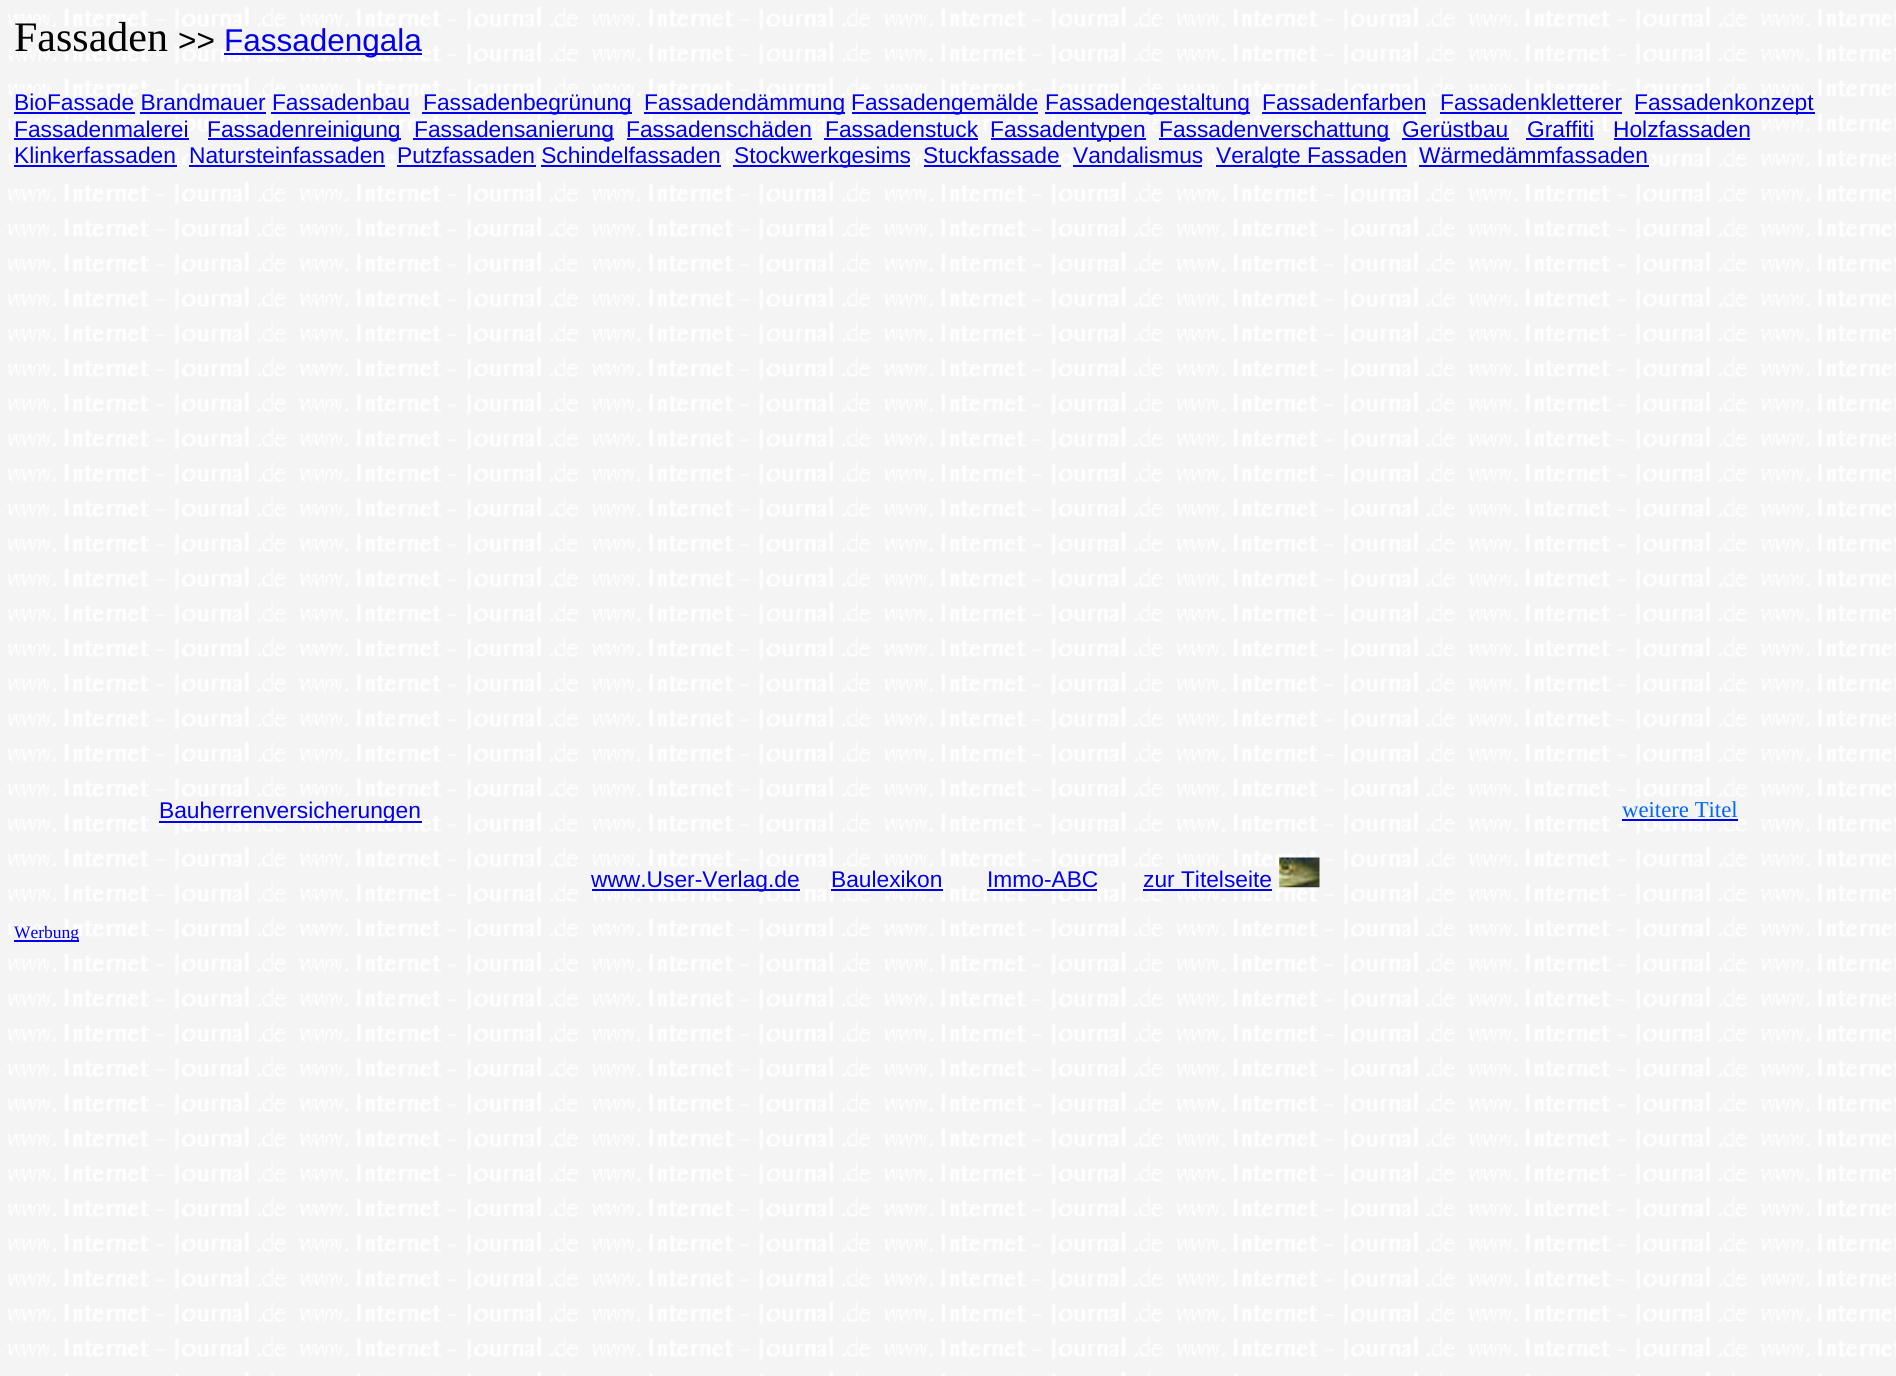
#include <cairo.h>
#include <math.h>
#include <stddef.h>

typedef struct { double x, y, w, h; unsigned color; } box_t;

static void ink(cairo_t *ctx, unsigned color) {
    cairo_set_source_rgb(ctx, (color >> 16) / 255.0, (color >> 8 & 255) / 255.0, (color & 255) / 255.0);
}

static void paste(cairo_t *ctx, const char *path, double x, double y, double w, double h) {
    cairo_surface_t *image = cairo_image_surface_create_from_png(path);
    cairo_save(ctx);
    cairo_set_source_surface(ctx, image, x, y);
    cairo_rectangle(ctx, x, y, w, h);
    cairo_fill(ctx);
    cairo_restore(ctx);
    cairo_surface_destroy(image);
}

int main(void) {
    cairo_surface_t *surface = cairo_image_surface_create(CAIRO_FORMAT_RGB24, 1896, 1376);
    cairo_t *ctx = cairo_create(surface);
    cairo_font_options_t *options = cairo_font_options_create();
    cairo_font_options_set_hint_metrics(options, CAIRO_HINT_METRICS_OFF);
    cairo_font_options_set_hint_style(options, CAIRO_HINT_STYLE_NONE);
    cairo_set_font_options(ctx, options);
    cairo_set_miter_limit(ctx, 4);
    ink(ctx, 0xFFFFFF);
    cairo_paint(ctx);
    paste(ctx, "media/1.png", 0, 0, 1896, 1376);
    cairo_select_font_face(ctx, "Liberation Serif", CAIRO_FONT_SLANT_NORMAL, CAIRO_FONT_WEIGHT_NORMAL);
    cairo_set_font_size(ctx, 42);
    ink(ctx, 0x000000);
    cairo_move_to(ctx, 14, 51);
    cairo_show_text(ctx, "Fassaden");
    cairo_select_font_face(ctx, "Liberation Sans", CAIRO_FONT_SLANT_NORMAL, CAIRO_FONT_WEIGHT_NORMAL);
    cairo_set_font_size(ctx, 31.5);
    cairo_move_to(ctx, 178, 51);
    cairo_show_text(ctx, ">>");
    ink(ctx, 0x0000EE);
    cairo_rectangle(ctx, 224, 53, 198, 2);
    cairo_fill(ctx);
    cairo_move_to(ctx, 224, 51);
    cairo_show_text(ctx, "Fassadengala");
    cairo_set_font_size(ctx, 22.75);
    cairo_move_to(ctx, 14, 110);
    cairo_show_text(ctx, "BioFassade Brandmauer Fassadenbau");
    {
        static const box_t items[] = {
            {14, 112, 121, 2, 0x0000EE},
            {140, 112, 126, 2, 0x0000EE},
            {271, 112, 139, 2, 0x0000EE},
            {422, 112, 210, 2, 0x0000EE},
        };
        for (size_t i = 0; i < sizeof items / sizeof *items; i++) {
            ink(ctx, items[i].color);
            cairo_rectangle(ctx, items[i].x, items[i].y, items[i].w, items[i].h);
            cairo_fill(ctx);
        }
    }
    cairo_move_to(ctx, 423, 110);
    cairo_show_text(ctx, "Fassadenbegrünung");
    cairo_rectangle(ctx, 644, 112, 201, 2);
    cairo_fill(ctx);
    cairo_move_to(ctx, 644, 110);
    cairo_show_text(ctx, "Fassadendämmung");
    cairo_rectangle(ctx, 852, 112, 186, 2);
    cairo_fill(ctx);
    cairo_move_to(ctx, 851, 110);
    cairo_show_text(ctx, "Fassadengemälde");
    cairo_rectangle(ctx, 1045, 112, 205, 2);
    cairo_fill(ctx);
    cairo_move_to(ctx, 1045, 110);
    cairo_show_text(ctx, "Fassadengestaltung");
    cairo_move_to(ctx, 1262, 110);
    cairo_show_text(ctx, "Fassadenfarben");
    cairo_rectangle(ctx, 1262, 112, 164, 2);
    cairo_fill(ctx);
    cairo_move_to(ctx, 1440, 110);
    cairo_show_text(ctx, "Fassadenkletterer");
    cairo_rectangle(ctx, 1440, 112, 182, 2);
    cairo_fill(ctx);
    cairo_rectangle(ctx, 1635, 112, 180, 2);
    cairo_fill(ctx);
    cairo_move_to(ctx, 1634, 110);
    cairo_show_text(ctx, "Fassadenkonzept");
    cairo_move_to(ctx, 14, 137);
    cairo_show_text(ctx, "Fassadenmalerei");
    cairo_rectangle(ctx, 14, 138, 175, 2);
    cairo_fill(ctx);
    cairo_rectangle(ctx, 208, 138, 193, 2);
    cairo_fill(ctx);
    cairo_move_to(ctx, 207, 137);
    cairo_show_text(ctx, "Fassadenreinigung");
    cairo_rectangle(ctx, 413, 138, 201, 2);
    cairo_fill(ctx);
    cairo_move_to(ctx, 414, 137);
    cairo_show_text(ctx, "Fassadensanierung");
    cairo_move_to(ctx, 626, 137);
    cairo_show_text(ctx, "Fassadenschäden");
    cairo_rectangle(ctx, 627, 138, 185, 2);
    cairo_fill(ctx);
    cairo_move_to(ctx, 825, 137);
    cairo_show_text(ctx, "Fassadenstuck");
    cairo_rectangle(ctx, 824, 138, 154, 2);
    cairo_fill(ctx);
    cairo_rectangle(ctx, 991, 138, 155, 2);
    cairo_fill(ctx);
    cairo_move_to(ctx, 990, 137);
    cairo_show_text(ctx, "Fassadentypen");
    cairo_rectangle(ctx, 1159, 138, 231, 2);
    cairo_fill(ctx);
    cairo_move_to(ctx, 1159, 137);
    cairo_show_text(ctx, "Fassadenverschattung");
    cairo_move_to(ctx, 1402, 137);
    cairo_show_text(ctx, "Gerüstbau");
    cairo_rectangle(ctx, 1402, 138, 107, 2);
    cairo_fill(ctx);
    cairo_move_to(ctx, 1527, 137);
    cairo_show_text(ctx, "Graffiti");
    cairo_rectangle(ctx, 1526, 138, 68, 2);
    cairo_fill(ctx);
    cairo_move_to(ctx, 1613, 137);
    cairo_show_text(ctx, "Holzfassaden");
    cairo_rectangle(ctx, 1614, 138, 136, 2);
    cairo_fill(ctx);
    cairo_move_to(ctx, 14, 163);
    cairo_show_text(ctx, "Klinkerfassaden");
    cairo_rectangle(ctx, 14, 165, 163, 2);
    cairo_fill(ctx);
    cairo_move_to(ctx, 189, 163);
    cairo_show_text(ctx, "Natursteinfassaden");
    cairo_rectangle(ctx, 189, 165, 196, 2);
    cairo_fill(ctx);
    cairo_move_to(ctx, 397, 163);
    cairo_show_text(ctx, "Putzfassaden Schindelfassaden");
    {
        static const box_t items[] = {
            {397, 165, 139, 2, 0x0000EE},
            {541, 165, 180, 2, 0x0000EE},
            {733, 165, 177, 2, 0x0000EE},
        };
        for (size_t i = 0; i < sizeof items / sizeof *items; i++) {
            ink(ctx, items[i].color);
            cairo_rectangle(ctx, items[i].x, items[i].y, items[i].w, items[i].h);
            cairo_fill(ctx);
        }
    }
    cairo_move_to(ctx, 734, 163);
    cairo_show_text(ctx, "Stockwerkgesims");
    cairo_move_to(ctx, 923, 163);
    cairo_show_text(ctx, "Stuckfassade");
    cairo_rectangle(ctx, 924, 165, 137, 2);
    cairo_fill(ctx);
    cairo_move_to(ctx, 1073, 163);
    cairo_show_text(ctx, "Vandalismus");
    cairo_rectangle(ctx, 1073, 165, 129, 2);
    cairo_fill(ctx);
    cairo_rectangle(ctx, 1216, 165, 191, 2);
    cairo_fill(ctx);
    cairo_move_to(ctx, 1216, 163);
    cairo_show_text(ctx, "Veralgte Fassaden");
    cairo_move_to(ctx, 1419, 163);
    cairo_show_text(ctx, "Wärmedämmfassaden");
    cairo_rectangle(ctx, 1419, 165, 230, 2);
    cairo_fill(ctx);
    cairo_rectangle(ctx, 159, 821, 263, 2);
    cairo_fill(ctx);
    cairo_move_to(ctx, 159, 818);
    cairo_show_text(ctx, "Bauherrenversicherungen");
    cairo_select_font_face(ctx, "Liberation Serif", CAIRO_FONT_SLANT_NORMAL, CAIRO_FONT_WEIGHT_NORMAL);
    ink(ctx, 0x0066FF);
    cairo_move_to(ctx, 1622, 817);
    cairo_show_text(ctx, "weitere Titel");
    ink(ctx, 0x0000EE);
    cairo_rectangle(ctx, 1622, 819, 116, 2);
    cairo_fill(ctx);
    cairo_rectangle(ctx, 592, 889, 208, 2);
    cairo_fill(ctx);
    cairo_select_font_face(ctx, "Liberation Sans", CAIRO_FONT_SLANT_NORMAL, CAIRO_FONT_WEIGHT_NORMAL);
    cairo_move_to(ctx, 591, 887);
    cairo_show_text(ctx, "www.User-Verlag.de");
    cairo_move_to(ctx, 831, 887);
    cairo_show_text(ctx, "Baulexikon");
    cairo_rectangle(ctx, 831, 889, 112, 2);
    cairo_fill(ctx);
    cairo_move_to(ctx, 987, 887);
    cairo_show_text(ctx, "Immo-ABC");
    cairo_rectangle(ctx, 987, 889, 110, 2);
    cairo_fill(ctx);
    cairo_move_to(ctx, 1143, 887);
    cairo_show_text(ctx, "zur Titelseite");
    cairo_rectangle(ctx, 1143, 889, 129, 2);
    cairo_fill(ctx);
    paste(ctx, "media/2.png", 1279, 857, 41, 31);
    cairo_rectangle(ctx, 14, 940, 65, 2);
    cairo_fill(ctx);
    cairo_select_font_face(ctx, "Liberation Serif", CAIRO_FONT_SLANT_NORMAL, CAIRO_FONT_WEIGHT_NORMAL);
    cairo_set_font_size(ctx, 17.5);
    cairo_move_to(ctx, 14, 938);
    cairo_show_text(ctx, "Werbung");
    cairo_surface_write_to_png(surface, "image.png");
    cairo_font_options_destroy(options);
    cairo_destroy(ctx);
    cairo_surface_destroy(surface);
    return 0;
}
